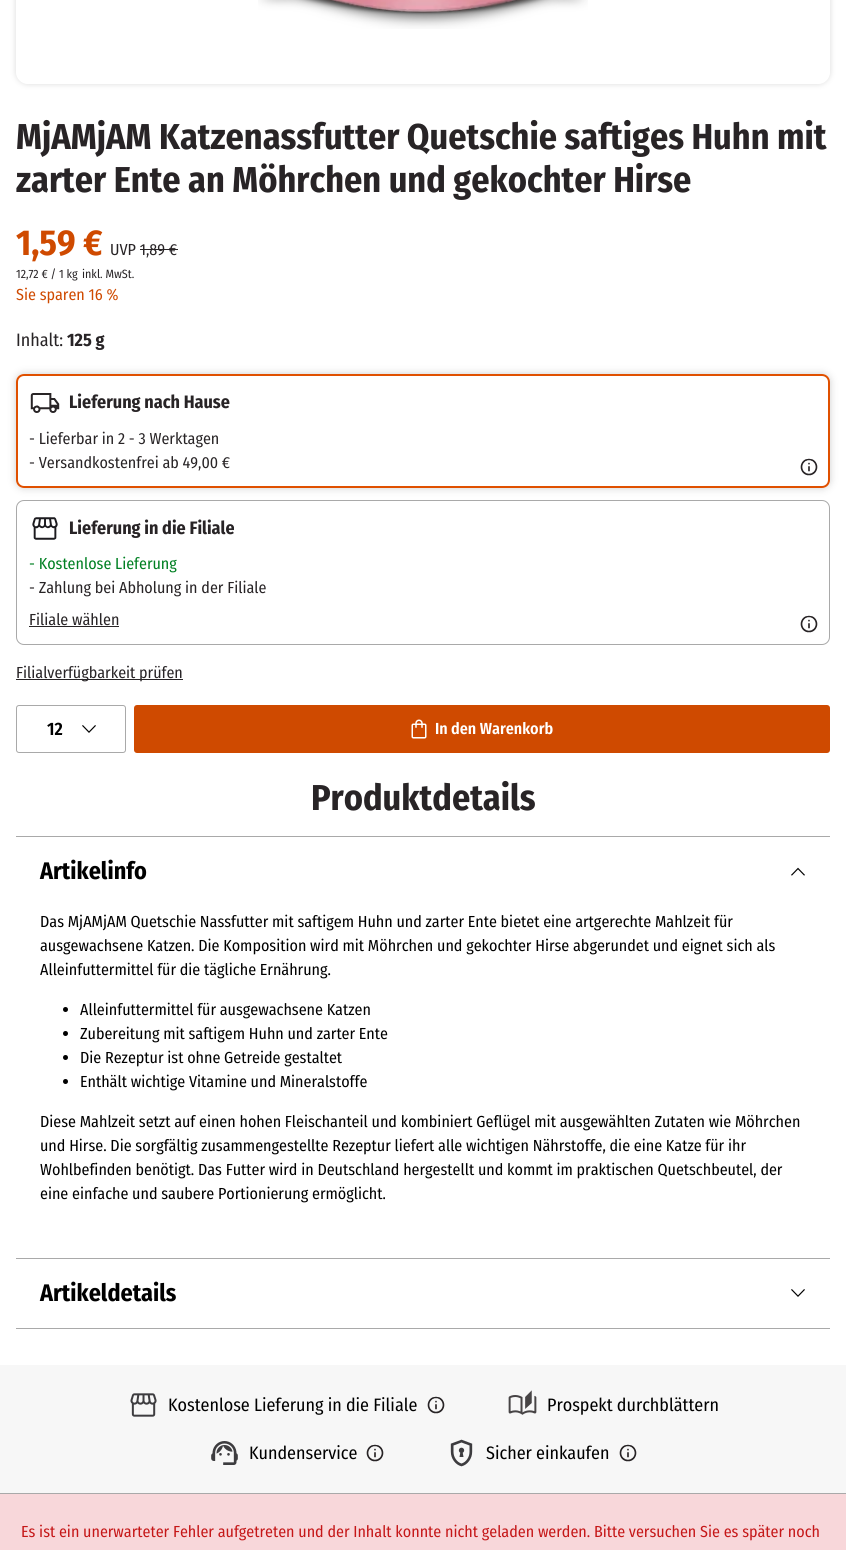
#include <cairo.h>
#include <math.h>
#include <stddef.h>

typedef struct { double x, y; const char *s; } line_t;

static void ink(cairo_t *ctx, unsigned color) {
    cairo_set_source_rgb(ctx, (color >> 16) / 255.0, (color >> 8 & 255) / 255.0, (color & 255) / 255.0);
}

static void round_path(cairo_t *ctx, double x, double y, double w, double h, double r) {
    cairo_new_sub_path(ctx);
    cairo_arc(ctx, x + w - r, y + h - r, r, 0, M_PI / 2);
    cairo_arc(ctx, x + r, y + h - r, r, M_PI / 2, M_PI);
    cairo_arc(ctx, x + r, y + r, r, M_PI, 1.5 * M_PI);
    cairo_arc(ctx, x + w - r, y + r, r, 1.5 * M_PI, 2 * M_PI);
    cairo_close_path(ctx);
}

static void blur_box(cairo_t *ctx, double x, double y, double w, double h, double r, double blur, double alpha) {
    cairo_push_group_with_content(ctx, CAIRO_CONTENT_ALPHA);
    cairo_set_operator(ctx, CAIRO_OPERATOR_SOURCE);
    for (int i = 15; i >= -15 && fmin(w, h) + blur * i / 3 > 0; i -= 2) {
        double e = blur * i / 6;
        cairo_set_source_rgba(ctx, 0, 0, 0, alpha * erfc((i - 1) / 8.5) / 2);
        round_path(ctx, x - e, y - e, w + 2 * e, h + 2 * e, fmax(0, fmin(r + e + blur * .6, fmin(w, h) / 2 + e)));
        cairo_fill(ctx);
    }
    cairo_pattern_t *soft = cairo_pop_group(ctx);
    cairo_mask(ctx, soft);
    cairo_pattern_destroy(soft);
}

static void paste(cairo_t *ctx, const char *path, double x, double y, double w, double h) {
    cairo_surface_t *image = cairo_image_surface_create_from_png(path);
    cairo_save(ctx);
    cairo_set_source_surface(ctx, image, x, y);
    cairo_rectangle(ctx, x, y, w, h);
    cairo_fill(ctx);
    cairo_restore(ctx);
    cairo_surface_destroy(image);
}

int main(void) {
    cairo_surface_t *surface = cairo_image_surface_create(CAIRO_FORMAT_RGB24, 846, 1550);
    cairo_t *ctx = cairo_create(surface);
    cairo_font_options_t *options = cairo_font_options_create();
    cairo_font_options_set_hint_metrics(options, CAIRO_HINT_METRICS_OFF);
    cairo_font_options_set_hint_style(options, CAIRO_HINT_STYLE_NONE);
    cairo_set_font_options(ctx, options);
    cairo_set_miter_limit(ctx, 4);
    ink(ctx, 0xFFFFFF);
    cairo_paint(ctx);
    cairo_save(ctx);
    cairo_set_fill_rule(ctx, CAIRO_FILL_RULE_EVEN_ODD);
    cairo_new_path(ctx);
    cairo_move_to(ctx, 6, 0);
    cairo_line_to(ctx, 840, 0);
    cairo_line_to(ctx, 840, 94);
    cairo_line_to(ctx, 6, 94);
    cairo_close_path(ctx);
    cairo_move_to(ctx, 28, -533);
    cairo_line_to(ctx, 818, -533);
    cairo_curve_to(ctx, 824.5, -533, 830, -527.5, 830, -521);
    cairo_line_to(ctx, 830, 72);
    cairo_curve_to(ctx, 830, 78.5, 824.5, 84, 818, 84);
    cairo_line_to(ctx, 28, 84);
    cairo_curve_to(ctx, 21.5, 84, 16, 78.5, 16, 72);
    cairo_line_to(ctx, 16, -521);
    cairo_curve_to(ctx, 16, -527.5, 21.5, -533, 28, -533);
    cairo_close_path(ctx);
    cairo_clip(ctx);
    ink(ctx, 0xE4E4E4);
    blur_box(ctx, 15, -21, 816, 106, 13, 2.5, 1);
    cairo_restore(ctx);
    paste(ctx, "media/1.png", 258, 0, 330, 29);
    cairo_select_font_face(ctx, "Fira Sans Condensed", CAIRO_FONT_SLANT_NORMAL, CAIRO_FONT_WEIGHT_BOLD);
    cairo_set_font_size(ctx, 36);
    ink(ctx, 0x282426);
    cairo_move_to(ctx, 16, 149);
    cairo_show_text(ctx, "MjAMjAM Katzenassfutter Quetschie saftiges Huhn mit");
    cairo_move_to(ctx, 16, 192);
    cairo_show_text(ctx, "zarter Ente an Möhrchen und gekochter Hirse");
    ink(ctx, 0xCF4A00);
    cairo_move_to(ctx, 16, 255);
    cairo_show_text(ctx, "1,59 €");
    cairo_select_font_face(ctx, "Fira Sans Condensed", CAIRO_FONT_SLANT_NORMAL, CAIRO_FONT_WEIGHT_NORMAL);
    cairo_set_font_size(ctx, 16);
    ink(ctx, 0x282426);
    cairo_move_to(ctx, 110, 255);
    cairo_show_text(ctx, "UVP 1,89 €");
    cairo_rectangle(ctx, 140, 249, 38, 1);
    cairo_fill(ctx);
    cairo_set_font_size(ctx, 12);
    cairo_move_to(ctx, 16, 278);
    cairo_show_text(ctx, "12,72 € / 1 kg");
    cairo_move_to(ctx, 82, 278);
    cairo_show_text(ctx, "inkl. MwSt.");
    cairo_set_font_size(ctx, 16);
    ink(ctx, 0xCF4A00);
    cairo_move_to(ctx, 16, 300);
    cairo_show_text(ctx, "Sie sparen 16 %");
    cairo_set_font_size(ctx, 18);
    ink(ctx, 0x282426);
    cairo_move_to(ctx, 16, 346);
    cairo_show_text(ctx, "Inhalt:");
    cairo_select_font_face(ctx, "Fira Sans Condensed", CAIRO_FONT_SLANT_NORMAL, CAIRO_FONT_WEIGHT_BOLD);
    cairo_move_to(ctx, 67, 346);
    cairo_show_text(ctx, "125 g");
    cairo_save(ctx);
    cairo_set_fill_rule(ctx, CAIRO_FILL_RULE_EVEN_ODD);
    cairo_new_path(ctx);
    cairo_move_to(ctx, 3, 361);
    cairo_line_to(ctx, 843, 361);
    cairo_line_to(ctx, 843, 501);
    cairo_line_to(ctx, 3, 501);
    cairo_close_path(ctx);
    cairo_move_to(ctx, 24, 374);
    cairo_line_to(ctx, 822, 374);
    cairo_curve_to(ctx, 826.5, 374, 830, 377.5, 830, 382);
    cairo_line_to(ctx, 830, 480);
    cairo_curve_to(ctx, 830, 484.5, 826.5, 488, 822, 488);
    cairo_line_to(ctx, 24, 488);
    cairo_curve_to(ctx, 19.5, 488, 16, 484.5, 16, 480);
    cairo_line_to(ctx, 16, 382);
    cairo_curve_to(ctx, 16, 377.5, 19.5, 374, 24, 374);
    cairo_close_path(ctx);
    cairo_clip(ctx);
    ink(ctx, 0xBEBEBE);
    blur_box(ctx, 16, 374, 814, 114, 8, 4, 0.75);
    cairo_restore(ctx);
    round_path(ctx, 17, 375, 812, 112, 7);
    ink(ctx, 0xE05000);
    cairo_stroke(ctx);
    paste(ctx, "media/2.png", 30, 393, 30, 20);
    ink(ctx, 0x282426);
    cairo_move_to(ctx, 69, 408);
    cairo_show_text(ctx, "Lieferung nach Hause");
    cairo_select_font_face(ctx, "Fira Sans Condensed", CAIRO_FONT_SLANT_NORMAL, CAIRO_FONT_WEIGHT_NORMAL);
    cairo_set_font_size(ctx, 16);
    cairo_move_to(ctx, 29, 444);
    cairo_show_text(ctx, "- Lieferbar in 2 - 3 Werktagen");
    cairo_move_to(ctx, 29, 468);
    cairo_show_text(ctx, "- Versandkostenfrei ab 49,00 €");
    paste(ctx, "media/3.png", 800, 458, 18, 18);
    round_path(ctx, 16.5, 500.5, 813, 144, 7.5);
    ink(ctx, 0xA9A9A9);
    cairo_set_line_width(ctx, 1);
    cairo_stroke(ctx);
    paste(ctx, "media/4.png", 32, 517, 26, 23);
    cairo_select_font_face(ctx, "Fira Sans Condensed", CAIRO_FONT_SLANT_NORMAL, CAIRO_FONT_WEIGHT_BOLD);
    cairo_set_font_size(ctx, 18);
    ink(ctx, 0x282426);
    cairo_move_to(ctx, 69, 534);
    cairo_show_text(ctx, "Lieferung in die Filiale");
    cairo_select_font_face(ctx, "Fira Sans Condensed", CAIRO_FONT_SLANT_NORMAL, CAIRO_FONT_WEIGHT_NORMAL);
    cairo_set_font_size(ctx, 16);
    ink(ctx, 0x008022);
    cairo_move_to(ctx, 29, 569);
    cairo_show_text(ctx, "- Kostenlose Lieferung");
    ink(ctx, 0x282426);
    cairo_move_to(ctx, 29, 593);
    cairo_show_text(ctx, "- Zahlung bei Abholung in der Filiale");
    cairo_move_to(ctx, 29, 625);
    cairo_show_text(ctx, "Filiale wählen");
    cairo_rectangle(ctx, 29, 626, 90, 1);
    cairo_fill(ctx);
    paste(ctx, "media/5.png", 800, 615, 18, 18);
    cairo_rectangle(ctx, 16, 679, 167, 1);
    cairo_fill(ctx);
    cairo_move_to(ctx, 16, 678);
    cairo_show_text(ctx, "Filialverfügbarkeit prüfen");
    round_path(ctx, 16.5, 705.5, 109, 47, 2.5);
    ink(ctx, 0xA9A9A9);
    cairo_stroke(ctx);
    cairo_select_font_face(ctx, "Fira Sans Condensed SemiBold", CAIRO_FONT_SLANT_NORMAL, CAIRO_FONT_WEIGHT_NORMAL);
    cairo_set_font_size(ctx, 18);
    ink(ctx, 0x000000);
    cairo_move_to(ctx, 47, 735);
    cairo_show_text(ctx, "12");
    paste(ctx, "media/6.png", 82, 725, 14, 8);
    ink(ctx, 0xCF4A00);
    round_path(ctx, 134, 705, 696, 48, 3);
    cairo_fill(ctx);
    paste(ctx, "media/7.png", 411, 719, 16, 20);
    cairo_set_font_size(ctx, 16);
    ink(ctx, 0xFFFFFF);
    cairo_move_to(ctx, 435, 734);
    cairo_show_text(ctx, "In den Warenkorb");
    cairo_select_font_face(ctx, "Fira Sans Condensed", CAIRO_FONT_SLANT_NORMAL, CAIRO_FONT_WEIGHT_BOLD);
    cairo_set_font_size(ctx, 36);
    ink(ctx, 0x282426);
    cairo_move_to(ctx, 311, 810);
    cairo_show_text(ctx, "Produktdetails");
    ink(ctx, 0xA9A9A9);
    cairo_rectangle(ctx, 16, 836, 814, 1);
    cairo_fill(ctx);
    cairo_set_font_size(ctx, 24);
    ink(ctx, 0x000000);
    cairo_move_to(ctx, 40, 879);
    cairo_show_text(ctx, "Artikelinfo");
    paste(ctx, "media/8.png", 791, 867, 14, 9);
    cairo_select_font_face(ctx, "Fira Sans Condensed", CAIRO_FONT_SLANT_NORMAL, CAIRO_FONT_WEIGHT_NORMAL);
    cairo_set_font_size(ctx, 16);
    {
        static const line_t items[] = {
            {40, 927, "Das MjAMjAM Quetschie Nassfutter mit saftigem Huhn und zarter Ente bietet eine artgerechte Mahlzeit für"},
            {40, 951, "ausgewachsene Katzen. Die Komposition wird mit Möhrchen und gekochter Hirse abgerundet und eignet sich als"},
            {40, 975, "Alleinfuttermittel für die tägliche Ernährung."},
        };
        for (size_t i = 0; i < sizeof items / sizeof *items; i++) {
            cairo_move_to(ctx, items[i].x, items[i].y);
            cairo_show_text(ctx, items[i].s);
        }
    }
    cairo_new_path(ctx);
    cairo_arc(ctx, 65.5, 1009.5, 2.5, 0, 2 * M_PI);
    cairo_fill(ctx);
    cairo_move_to(ctx, 80, 1015);
    cairo_show_text(ctx, "Alleinfuttermittel für ausgewachsene Katzen");
    cairo_new_path(ctx);
    cairo_arc(ctx, 65.5, 1033.5, 2.5, 0, 2 * M_PI);
    cairo_fill(ctx);
    cairo_move_to(ctx, 80, 1039);
    cairo_show_text(ctx, "Zubereitung mit saftigem Huhn und zarter Ente");
    cairo_new_path(ctx);
    cairo_arc(ctx, 65.5, 1057.5, 2.5, 0, 2 * M_PI);
    cairo_fill(ctx);
    cairo_move_to(ctx, 80, 1063);
    cairo_show_text(ctx, "Die Rezeptur ist ohne Getreide gestaltet");
    cairo_new_path(ctx);
    cairo_arc(ctx, 65.5, 1081.5, 2.5, 0, 2 * M_PI);
    cairo_fill(ctx);
    {
        static const line_t items[] = {
            {80, 1087, "Enthält wichtige Vitamine und Mineralstoffe"},
            {40, 1127, "Diese Mahlzeit setzt auf einen hohen Fleischanteil und kombiniert Geflügel mit ausgewählten Zutaten wie Möhrchen"},
            {40, 1151, "und Hirse. Die sorgfältig zusammengestellte Rezeptur liefert alle wichtigen Nährstoffe, die eine Katze für ihr"},
            {40, 1175, "Wohlbefinden benötigt. Das Futter wird in Deutschland hergestellt und kommt im praktischen Quetschbeutel, der"},
            {40, 1199, "eine einfache und saubere Portionierung ermöglicht."},
        };
        for (size_t i = 0; i < sizeof items / sizeof *items; i++) {
            cairo_move_to(ctx, items[i].x, items[i].y);
            cairo_show_text(ctx, items[i].s);
        }
    }
    ink(ctx, 0xA9A9A9);
    cairo_rectangle(ctx, 16, 1258, 814, 1);
    cairo_fill(ctx);
    cairo_rectangle(ctx, 16, 1328, 814, 1);
    cairo_fill(ctx);
    cairo_select_font_face(ctx, "Fira Sans Condensed", CAIRO_FONT_SLANT_NORMAL, CAIRO_FONT_WEIGHT_BOLD);
    cairo_set_font_size(ctx, 24);
    ink(ctx, 0x000000);
    cairo_move_to(ctx, 40, 1301);
    cairo_show_text(ctx, "Artikeldetails");
    paste(ctx, "media/6.png", 791, 1289, 14, 8);
    ink(ctx, 0xF7F7F7);
    cairo_rectangle(ctx, 0, 1365, 846, 128);
    cairo_fill(ctx);
    ink(ctx, 0xA9A9A9);
    cairo_rectangle(ctx, 0, 1493, 846, 1);
    cairo_fill(ctx);
    paste(ctx, "media/9.png", 130, 1393, 27, 24);
    cairo_select_font_face(ctx, "Fira Sans Condensed", CAIRO_FONT_SLANT_NORMAL, CAIRO_FONT_WEIGHT_NORMAL);
    cairo_set_font_size(ctx, 18);
    ink(ctx, 0x000000);
    cairo_move_to(ctx, 168, 1411);
    cairo_show_text(ctx, "Kostenlose Lieferung in die Filiale");
    paste(ctx, "media/10.png", 427, 1396, 18, 18);
    paste(ctx, "media/11.png", 508, 1390, 29, 25);
    cairo_move_to(ctx, 547, 1411);
    cairo_show_text(ctx, "Prospekt durchblättern");
    paste(ctx, "media/12.png", 211, 1441, 27, 24);
    cairo_move_to(ctx, 249, 1459);
    cairo_show_text(ctx, "Kundenservice");
    paste(ctx, "media/10.png", 366, 1444, 18, 18);
    paste(ctx, "media/13.png", 450, 1439, 23, 28);
    cairo_move_to(ctx, 486, 1459);
    cairo_show_text(ctx, "Sicher einkaufen");
    paste(ctx, "media/10.png", 619, 1444, 18, 18);
    ink(ctx, 0xF8D7DA);
    cairo_rectangle(ctx, 0, 1494, 846, 56);
    cairo_fill(ctx);
    cairo_set_font_size(ctx, 16);
    ink(ctx, 0xC51718);
    cairo_move_to(ctx, 21, 1537);
    cairo_show_text(ctx, "Es ist ein unerwarteter Fehler aufgetreten und der Inhalt konnte nicht geladen werden. Bitte versuchen Sie es später noch");
    cairo_surface_write_to_png(surface, "image.png");
    cairo_font_options_destroy(options);
    cairo_destroy(ctx);
    cairo_surface_destroy(surface);
    return 0;
}
